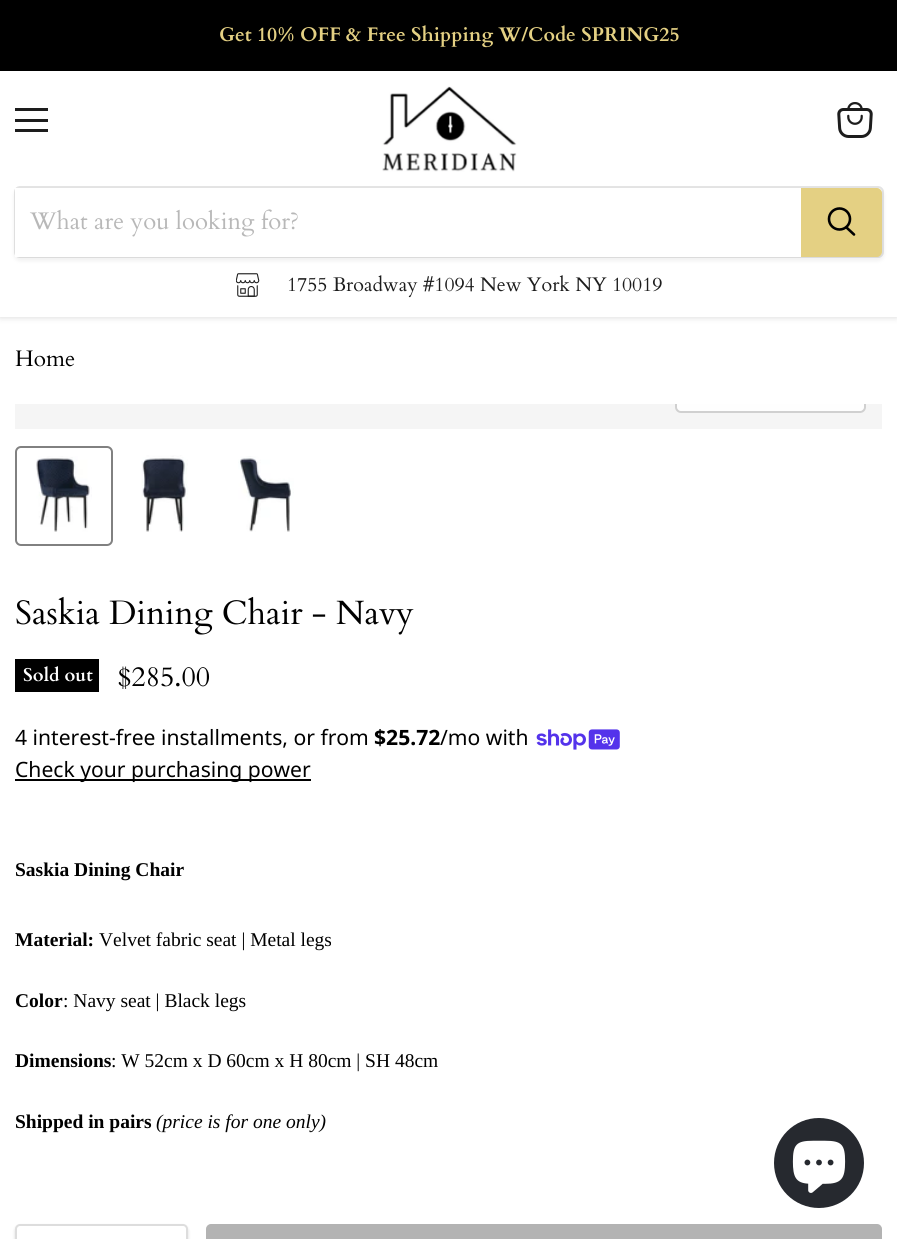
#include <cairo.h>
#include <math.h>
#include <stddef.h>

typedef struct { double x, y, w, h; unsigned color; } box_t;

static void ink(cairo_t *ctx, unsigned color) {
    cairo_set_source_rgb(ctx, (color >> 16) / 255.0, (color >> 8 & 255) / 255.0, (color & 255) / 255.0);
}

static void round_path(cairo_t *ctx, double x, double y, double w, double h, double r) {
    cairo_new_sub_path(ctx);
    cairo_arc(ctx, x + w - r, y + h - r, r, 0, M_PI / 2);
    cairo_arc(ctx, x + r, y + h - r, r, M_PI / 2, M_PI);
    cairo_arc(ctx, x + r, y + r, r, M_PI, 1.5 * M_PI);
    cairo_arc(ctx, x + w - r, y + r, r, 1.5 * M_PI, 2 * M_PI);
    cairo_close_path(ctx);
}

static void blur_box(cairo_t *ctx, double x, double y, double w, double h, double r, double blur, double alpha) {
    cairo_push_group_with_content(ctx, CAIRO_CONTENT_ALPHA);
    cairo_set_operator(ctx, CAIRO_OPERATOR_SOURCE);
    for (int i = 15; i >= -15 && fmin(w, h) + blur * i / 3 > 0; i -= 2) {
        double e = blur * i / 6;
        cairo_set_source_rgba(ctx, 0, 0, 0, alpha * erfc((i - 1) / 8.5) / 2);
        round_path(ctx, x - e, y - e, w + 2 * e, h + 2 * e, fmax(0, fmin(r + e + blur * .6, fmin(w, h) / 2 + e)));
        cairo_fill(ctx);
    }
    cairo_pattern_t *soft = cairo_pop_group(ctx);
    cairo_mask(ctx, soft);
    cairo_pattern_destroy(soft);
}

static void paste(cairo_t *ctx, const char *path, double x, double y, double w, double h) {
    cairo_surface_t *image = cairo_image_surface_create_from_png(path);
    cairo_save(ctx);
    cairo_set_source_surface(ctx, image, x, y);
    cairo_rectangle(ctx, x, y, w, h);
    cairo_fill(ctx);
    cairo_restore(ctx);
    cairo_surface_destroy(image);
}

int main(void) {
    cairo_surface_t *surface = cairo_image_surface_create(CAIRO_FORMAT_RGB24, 897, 1239);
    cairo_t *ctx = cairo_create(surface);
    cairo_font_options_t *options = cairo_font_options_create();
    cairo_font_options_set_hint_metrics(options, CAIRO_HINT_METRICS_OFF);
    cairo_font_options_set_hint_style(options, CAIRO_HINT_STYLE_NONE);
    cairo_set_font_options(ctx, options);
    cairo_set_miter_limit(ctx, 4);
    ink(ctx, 0xFFFFFF);
    cairo_paint(ctx);
    ink(ctx, 0x808080);
    blur_box(ctx, 0, 72, 897, 246, 0, 3, 0.25);
    ink(ctx, 0x000000);
    cairo_rectangle(ctx, 0, 0, 897, 71);
    cairo_fill(ctx);
    cairo_select_font_face(ctx, "Cardo", CAIRO_FONT_SLANT_NORMAL, CAIRO_FONT_WEIGHT_BOLD);
    cairo_set_font_size(ctx, 19.7);
    ink(ctx, 0xE4D083);
    cairo_move_to(ctx, 219, 41);
    cairo_show_text(ctx, "Get 10% OFF & Free Shipping W/Code SPRING25");
    {
        static const box_t items[] = {
            {0, 71, 897, 246, 0xFFFFFF},
            {15, 108, 33, 3, 0x1D1D1D},
            {15, 119, 33, 3, 0x1D1D1D},
            {15, 129, 33, 3, 0x1D1D1D},
        };
        for (size_t i = 0; i < sizeof items / sizeof *items; i++) {
            ink(ctx, items[i].color);
            cairo_rectangle(ctx, items[i].x, items[i].y, items[i].w, items[i].h);
            cairo_fill(ctx);
        }
    }
    paste(ctx, "media/1.png", 837, 102, 36, 36);
    paste(ctx, "media/2.png", 382, 86, 135, 86);
    ink(ctx, 0x808080);
    blur_box(ctx, 14, 189, 870, 72, 6, 2, 0.11);
    round_path(ctx, 15, 187, 868, 70, 5);
    cairo_set_source_rgba(ctx, 0.502, 0.502, 0.502, 0.2);
    cairo_stroke(ctx);
    ink(ctx, 0xFFFFFF);
    cairo_rectangle(ctx, 15, 188, 786, 69);
    cairo_fill(ctx);
    cairo_select_font_face(ctx, "Cardo", CAIRO_FONT_SLANT_NORMAL, CAIRO_FONT_WEIGHT_NORMAL);
    cairo_set_font_size(ctx, 24);
    ink(ctx, 0xB8B8B8);
    cairo_move_to(ctx, 30, 229);
    cairo_show_text(ctx, "What are you looking for?");
    ink(ctx, 0xE4D083);
    cairo_new_path(ctx);
    cairo_move_to(ctx, 802, 189);
    cairo_line_to(ctx, 877, 189);
    cairo_curve_to(ctx, 879, 189, 881, 191, 881, 193);
    cairo_line_to(ctx, 881, 252);
    cairo_curve_to(ctx, 881, 254, 879, 256, 877, 256);
    cairo_line_to(ctx, 802, 256);
    cairo_close_path(ctx);
    cairo_fill_preserve(ctx);
    cairo_stroke(ctx);
    cairo_new_path(ctx);
    cairo_move_to(ctx, 854, 234.5);
    cairo_line_to(ctx, 846.5, 227.5);
    ink(ctx, 0x000000);
    cairo_set_line_width(ctx, 2.6);
    cairo_set_line_cap(ctx, CAIRO_LINE_CAP_ROUND);
    cairo_stroke(ctx);
    cairo_arc(ctx, 839.5, 219, 10.5, 0, 2 * M_PI);
    cairo_set_line_cap(ctx, CAIRO_LINE_CAP_BUTT);
    cairo_stroke(ctx);
    paste(ctx, "media/3.png", 236, 273, 24, 24);
    cairo_set_font_size(ctx, 19.7);
    ink(ctx, 0x1D1D1D);
    cairo_move_to(ctx, 287, 291);
    cairo_show_text(ctx, "1755 Broadway #1094 New York NY 10019");
    cairo_set_font_size(ctx, 22.5);
    ink(ctx, 0x000000);
    cairo_move_to(ctx, 15, 366);
    cairo_show_text(ctx, "Home");
    ink(ctx, 0xF5F5F5);
    cairo_rectangle(ctx, 15, 404, 867, 25);
    cairo_fill(ctx);
    cairo_save(ctx);
    cairo_rectangle(ctx, 15, 404, 867, 25);
    cairo_clip(ctx);
    round_path(ctx, 676, 370, 189, 42, 5);
    ink(ctx, 0xD0D0D0);
    cairo_set_line_width(ctx, 2);
    cairo_stroke(ctx);
    cairo_restore(ctx);
    cairo_set_source_rgba(ctx, 1, 1, 1, 0.9);
    cairo_new_path(ctx);
    cairo_move_to(ctx, 677, 404);
    cairo_line_to(ctx, 864, 404);
    cairo_line_to(ctx, 864, 406);
    cairo_curve_to(ctx, 864, 409, 862, 411, 859, 411);
    cairo_line_to(ctx, 682, 411);
    cairo_curve_to(ctx, 679, 411, 677, 409, 677, 406);
    cairo_close_path(ctx);
    cairo_fill(ctx);
    round_path(ctx, 16, 447, 96, 98, 5);
    ink(ctx, 0x818181);
    cairo_set_line_width(ctx, 2);
    cairo_stroke(ctx);
    paste(ctx, "media/4.png", 36, 456, 56, 76);
    paste(ctx, "media/5.png", 141, 455, 47, 77);
    paste(ctx, "media/6.png", 238, 456, 56, 76);
    cairo_set_font_size(ctx, 33.75);
    ink(ctx, 0x000000);
    cairo_move_to(ctx, 15, 624);
    cairo_show_text(ctx, "Saskia Dining Chair - Navy");
    cairo_rectangle(ctx, 15, 659, 84, 33);
    cairo_fill(ctx);
    cairo_select_font_face(ctx, "Cardo", CAIRO_FONT_SLANT_NORMAL, CAIRO_FONT_WEIGHT_BOLD);
    cairo_set_font_size(ctx, 18.5);
    ink(ctx, 0xFFFFFF);
    cairo_move_to(ctx, 23, 681);
    cairo_show_text(ctx, "Sold out");
    cairo_select_font_face(ctx, "Cardo", CAIRO_FONT_SLANT_NORMAL, CAIRO_FONT_WEIGHT_NORMAL);
    cairo_set_font_size(ctx, 28);
    ink(ctx, 0x000000);
    cairo_move_to(ctx, 117, 686);
    cairo_show_text(ctx, "$285.00");
    cairo_select_font_face(ctx, "Noto Sans", CAIRO_FONT_SLANT_NORMAL, CAIRO_FONT_WEIGHT_NORMAL);
    cairo_set_font_size(ctx, 21.1);
    cairo_move_to(ctx, 15, 745);
    cairo_show_text(ctx, "4 interest-free installments, or from");
    cairo_select_font_face(ctx, "Noto Sans", CAIRO_FONT_SLANT_NORMAL, CAIRO_FONT_WEIGHT_BOLD);
    cairo_move_to(ctx, 374, 745);
    cairo_show_text(ctx, "$25.72");
    cairo_select_font_face(ctx, "Noto Sans", CAIRO_FONT_SLANT_NORMAL, CAIRO_FONT_WEIGHT_NORMAL);
    cairo_move_to(ctx, 440, 745);
    cairo_show_text(ctx, "/mo with");
    paste(ctx, "media/7.png", 536, 729, 84, 21);
    cairo_rectangle(ctx, 15, 779, 296, 2);
    cairo_fill(ctx);
    cairo_move_to(ctx, 15, 777);
    cairo_show_text(ctx, "Check your purchasing power");
    cairo_select_font_face(ctx, "Liberation Serif", CAIRO_FONT_SLANT_NORMAL, CAIRO_FONT_WEIGHT_BOLD);
    cairo_set_font_size(ctx, 19.5);
    cairo_move_to(ctx, 15, 876);
    cairo_show_text(ctx, "Saskia Dining Chair");
    cairo_move_to(ctx, 15, 946);
    cairo_show_text(ctx, "Material:");
    cairo_select_font_face(ctx, "Liberation Serif", CAIRO_FONT_SLANT_NORMAL, CAIRO_FONT_WEIGHT_NORMAL);
    cairo_move_to(ctx, 99, 946);
    cairo_show_text(ctx, "Velvet fabric seat | Metal legs");
    cairo_select_font_face(ctx, "Liberation Serif", CAIRO_FONT_SLANT_NORMAL, CAIRO_FONT_WEIGHT_BOLD);
    cairo_move_to(ctx, 15, 1007);
    cairo_show_text(ctx, "Color");
    cairo_select_font_face(ctx, "Liberation Serif", CAIRO_FONT_SLANT_NORMAL, CAIRO_FONT_WEIGHT_NORMAL);
    cairo_move_to(ctx, 63, 1007);
    cairo_show_text(ctx, ": Navy seat | Black legs");
    cairo_select_font_face(ctx, "Liberation Serif", CAIRO_FONT_SLANT_NORMAL, CAIRO_FONT_WEIGHT_BOLD);
    cairo_move_to(ctx, 15, 1067);
    cairo_show_text(ctx, "Dimensions");
    cairo_select_font_face(ctx, "Liberation Serif", CAIRO_FONT_SLANT_NORMAL, CAIRO_FONT_WEIGHT_NORMAL);
    cairo_move_to(ctx, 111, 1067);
    cairo_show_text(ctx, ": W 52cm x D 60cm x H 80cm | SH 48cm");
    cairo_select_font_face(ctx, "Liberation Serif", CAIRO_FONT_SLANT_NORMAL, CAIRO_FONT_WEIGHT_BOLD);
    cairo_move_to(ctx, 15, 1128);
    cairo_show_text(ctx, "Shipped in pairs");
    cairo_select_font_face(ctx, "Liberation Serif", CAIRO_FONT_SLANT_ITALIC, CAIRO_FONT_WEIGHT_NORMAL);
    cairo_move_to(ctx, 156, 1128);
    cairo_show_text(ctx, "(price is for one only)");
    ink(ctx, 0x000000);
    blur_box(ctx, 15, 1226, 173, 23, 5, 1.5, 0.15);
    ink(ctx, 0xFFFFFF);
    round_path(ctx, 16, 1225, 171, 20, 4);
    cairo_fill_preserve(ctx);
    ink(ctx, 0xDDDDDD);
    cairo_stroke(ctx);
    ink(ctx, 0xB3B3B3);
    round_path(ctx, 207, 1225, 674, 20, 4);
    cairo_fill_preserve(ctx);
    cairo_stroke(ctx);
    ink(ctx, 0x26292F);
    cairo_arc(ctx, 819, 1163, 45, 0, 2 * M_PI);
    cairo_fill(ctx);
    paste(ctx, "media/8.png", 792, 1140, 54, 53);
    cairo_surface_write_to_png(surface, "image.png");
    cairo_font_options_destroy(options);
    cairo_destroy(ctx);
    cairo_surface_destroy(surface);
    return 0;
}
